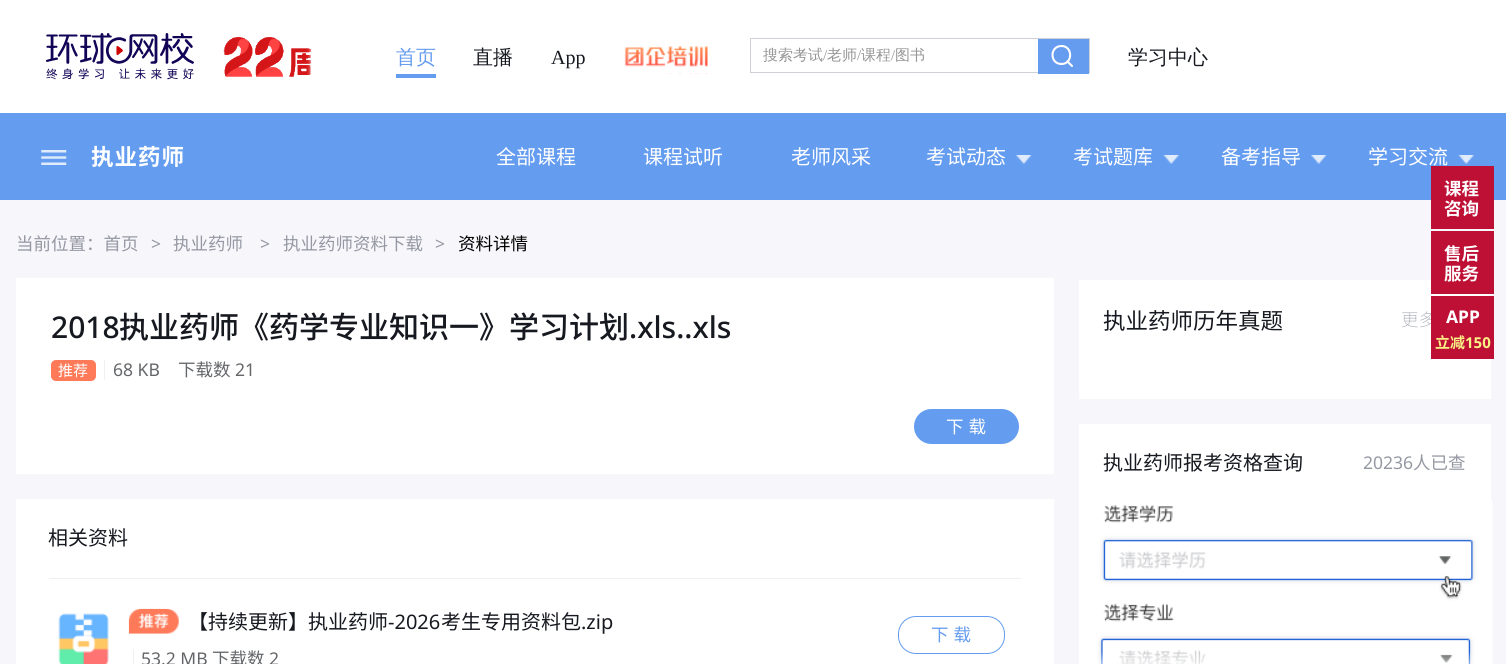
#include <cairo.h>
#include <math.h>
#include <stddef.h>

typedef struct { double x, y; const char *s; } line_t;

static void ink(cairo_t *ctx, unsigned color) {
    cairo_set_source_rgb(ctx, (color >> 16) / 255.0, (color >> 8 & 255) / 255.0, (color & 255) / 255.0);
}

static void write_spaced(cairo_t *ctx, double x, double y, const char *s, double letter, double word) {
    cairo_move_to(ctx, x, y);
    while (*s) {
        char ch[5] = {0};
        int n = 0;
        do ch[n++] = *s++; while ((*s & 0xC0) == 0x80);
        cairo_show_text(ctx, ch);
        cairo_rel_move_to(ctx, letter + word * (*ch == ' '), 0);
    }
}

static void round_path(cairo_t *ctx, double x, double y, double w, double h, double r) {
    cairo_new_sub_path(ctx);
    cairo_arc(ctx, x + w - r, y + h - r, r, 0, M_PI / 2);
    cairo_arc(ctx, x + r, y + h - r, r, M_PI / 2, M_PI);
    cairo_arc(ctx, x + r, y + r, r, M_PI, 1.5 * M_PI);
    cairo_arc(ctx, x + w - r, y + r, r, 1.5 * M_PI, 2 * M_PI);
    cairo_close_path(ctx);
}

static void paste(cairo_t *ctx, const char *path, double x, double y, double w, double h) {
    cairo_surface_t *image = cairo_image_surface_create_from_png(path);
    cairo_save(ctx);
    cairo_set_source_surface(ctx, image, x, y);
    cairo_rectangle(ctx, x, y, w, h);
    cairo_fill(ctx);
    cairo_restore(ctx);
    cairo_surface_destroy(image);
}

int main(void) {
    cairo_surface_t *surface = cairo_image_surface_create(CAIRO_FORMAT_RGB24, 1506, 664);
    cairo_t *ctx = cairo_create(surface);
    cairo_font_options_t *options = cairo_font_options_create();
    cairo_font_options_set_hint_metrics(options, CAIRO_HINT_METRICS_OFF);
    cairo_font_options_set_hint_style(options, CAIRO_HINT_STYLE_NONE);
    cairo_set_font_options(ctx, options);
    cairo_set_miter_limit(ctx, 4);
    ink(ctx, 0xF7F6FB);
    cairo_paint(ctx);
    ink(ctx, 0xFFFFFF);
    cairo_rectangle(ctx, 0, 0, 1506, 113);
    cairo_fill(ctx);
    paste(ctx, "media/1.png", 46, 33, 148, 47);
    paste(ctx, "media/2.png", 223, 37, 89, 40);
    ink(ctx, 0x649CF0);
    cairo_rectangle(ctx, 396, 74, 40, 4);
    cairo_fill(ctx);
    cairo_select_font_face(ctx, "WenQuanYi Zen Hei Medium", CAIRO_FONT_SLANT_NORMAL, CAIRO_FONT_WEIGHT_NORMAL);
    cairo_set_font_size(ctx, 20);
    cairo_move_to(ctx, 396, 64);
    cairo_show_text(ctx, "首页");
    ink(ctx, 0x171920);
    cairo_move_to(ctx, 473, 64);
    cairo_show_text(ctx, "直播");
    cairo_select_font_face(ctx, "Liberation Serif", CAIRO_FONT_SLANT_NORMAL, CAIRO_FONT_WEIGHT_NORMAL);
    cairo_move_to(ctx, 551, 64);
    cairo_show_text(ctx, "App");
    paste(ctx, "media/3.png", 624, 46, 84, 28);
    cairo_rectangle(ctx, 750.5, 38.5, 339, 34);
    ink(ctx, 0xCFD1D6);
    cairo_set_line_width(ctx, 1);
    cairo_stroke(ctx);
    cairo_select_font_face(ctx, "WenQuanYi Zen Hei Medium", CAIRO_FONT_SLANT_NORMAL, CAIRO_FONT_WEIGHT_NORMAL);
    cairo_set_font_size(ctx, 15);
    ink(ctx, 0x969696);
    cairo_move_to(ctx, 763, 60);
    cairo_show_text(ctx, "搜索考试");
    cairo_select_font_face(ctx, "Liberation Serif", CAIRO_FONT_SLANT_NORMAL, CAIRO_FONT_WEIGHT_NORMAL);
    cairo_move_to(ctx, 823, 60);
    cairo_show_text(ctx, "/");
    cairo_select_font_face(ctx, "WenQuanYi Zen Hei Medium", CAIRO_FONT_SLANT_NORMAL, CAIRO_FONT_WEIGHT_NORMAL);
    cairo_move_to(ctx, 827, 60);
    cairo_show_text(ctx, "老师");
    cairo_select_font_face(ctx, "Liberation Serif", CAIRO_FONT_SLANT_NORMAL, CAIRO_FONT_WEIGHT_NORMAL);
    cairo_move_to(ctx, 857, 60);
    cairo_show_text(ctx, "/");
    cairo_select_font_face(ctx, "WenQuanYi Zen Hei Medium", CAIRO_FONT_SLANT_NORMAL, CAIRO_FONT_WEIGHT_NORMAL);
    cairo_move_to(ctx, 861, 60);
    cairo_show_text(ctx, "课程");
    cairo_select_font_face(ctx, "Liberation Serif", CAIRO_FONT_SLANT_NORMAL, CAIRO_FONT_WEIGHT_NORMAL);
    cairo_move_to(ctx, 891, 60);
    cairo_show_text(ctx, "/");
    cairo_select_font_face(ctx, "WenQuanYi Zen Hei Medium", CAIRO_FONT_SLANT_NORMAL, CAIRO_FONT_WEIGHT_NORMAL);
    cairo_move_to(ctx, 895, 60);
    cairo_show_text(ctx, "图书");
    ink(ctx, 0x659CEF);
    cairo_rectangle(ctx, 1038, 39, 51, 35);
    cairo_fill(ctx);
    cairo_new_path(ctx);
    cairo_move_to(ctx, 1061.5, 64);
    cairo_curve_to(ctx, 1073, 64, 1073, 46, 1061.5, 46);
    cairo_curve_to(ctx, 1049.5, 46, 1049.5, 64, 1061.5, 64);
    cairo_close_path(ctx);
    ink(ctx, 0xFFFFFF);
    cairo_set_line_width(ctx, 2.1);
    cairo_set_line_join(ctx, CAIRO_LINE_JOIN_ROUND);
    cairo_stroke(ctx);
    cairo_new_path(ctx);
    cairo_move_to(ctx, 1067.5, 61.5);
    cairo_line_to(ctx, 1072, 66);
    cairo_set_line_cap(ctx, CAIRO_LINE_CAP_ROUND);
    cairo_stroke(ctx);
    cairo_set_font_size(ctx, 20);
    ink(ctx, 0x171920);
    cairo_move_to(ctx, 1128, 64);
    cairo_show_text(ctx, "学习中心");
    ink(ctx, 0x649CF0);
    cairo_rectangle(ctx, 0, 113, 1506, 87);
    cairo_fill(ctx);
    paste(ctx, "media/4.png", 41, 150, 26, 15);
    cairo_select_font_face(ctx, "Noto Sans CJK SC", CAIRO_FONT_SLANT_NORMAL, CAIRO_FONT_WEIGHT_BOLD);
    cairo_set_font_size(ctx, 22.5);
    ink(ctx, 0xFFFFFF);
    write_spaced(ctx, 91, 165, "执业药师", 1, 0);
    cairo_select_font_face(ctx, "Noto Sans CJK SC", CAIRO_FONT_SLANT_NORMAL, CAIRO_FONT_WEIGHT_NORMAL);
    cairo_set_font_size(ctx, 20);
    {
        static const line_t items[] = {
            {496, 164, "全部课程"},
            {643, 164, "课程试听"},
            {791, 164, "老师风采"},
            {926, 164, "考试动态"},
        };
        for (size_t i = 0; i < sizeof items / sizeof *items; i++) {
            cairo_move_to(ctx, items[i].x, items[i].y);
            cairo_show_text(ctx, items[i].s);
        }
    }
    paste(ctx, "media/5.png", 1016, 155, 16, 9);
    cairo_move_to(ctx, 1073, 164);
    cairo_show_text(ctx, "考试题库");
    paste(ctx, "media/6.png", 1163, 155, 16, 9);
    cairo_move_to(ctx, 1221, 164);
    cairo_show_text(ctx, "备考指导");
    paste(ctx, "media/5.png", 1311, 155, 16, 9);
    cairo_move_to(ctx, 1368, 164);
    cairo_show_text(ctx, "学习交流");
    paste(ctx, "media/7.png", 1458, 155, 16, 9);
    ink(ctx, 0xBE0F34);
    cairo_rectangle(ctx, 1431, 166, 63, 63);
    cairo_fill(ctx);
    cairo_select_font_face(ctx, "Noto Sans CJK SC", CAIRO_FONT_SLANT_NORMAL, CAIRO_FONT_WEIGHT_BOLD);
    cairo_set_font_size(ctx, 17.5);
    ink(ctx, 0xFFFFFF);
    cairo_move_to(ctx, 1444, 195);
    cairo_show_text(ctx, "课程");
    cairo_move_to(ctx, 1444, 215);
    cairo_show_text(ctx, "咨询");
    cairo_rectangle(ctx, 1079, 280, 412, 119);
    cairo_fill(ctx);
    ink(ctx, 0xBE0F34);
    cairo_rectangle(ctx, 1431, 231, 63, 63);
    cairo_fill(ctx);
    ink(ctx, 0xFFFFFF);
    cairo_move_to(ctx, 1444, 260);
    cairo_show_text(ctx, "售后");
    cairo_move_to(ctx, 1444, 280);
    cairo_show_text(ctx, "服务");
    cairo_select_font_face(ctx, "Noto Sans CJK SC Thin", CAIRO_FONT_SLANT_NORMAL, CAIRO_FONT_WEIGHT_NORMAL);
    ink(ctx, 0x9598A2);
    cairo_move_to(ctx, 1401, 326);
    cairo_show_text(ctx, "更多");
    ink(ctx, 0xBE0F34);
    cairo_rectangle(ctx, 1431, 296, 63, 63);
    cairo_fill(ctx);
    cairo_select_font_face(ctx, "Noto Sans", CAIRO_FONT_SLANT_NORMAL, CAIRO_FONT_WEIGHT_BOLD);
    ink(ctx, 0xFFFFFF);
    cairo_move_to(ctx, 1446, 323);
    cairo_show_text(ctx, "APP");
    cairo_select_font_face(ctx, "Noto Sans CJK SC", CAIRO_FONT_SLANT_NORMAL, CAIRO_FONT_WEIGHT_BOLD);
    cairo_set_font_size(ctx, 15);
    ink(ctx, 0xF9F186);
    cairo_move_to(ctx, 1435, 348);
    cairo_show_text(ctx, "立减");
    cairo_select_font_face(ctx, "Noto Sans", CAIRO_FONT_SLANT_NORMAL, CAIRO_FONT_WEIGHT_BOLD);
    cairo_move_to(ctx, 1465, 348);
    cairo_show_text(ctx, "150");
    cairo_select_font_face(ctx, "Noto Sans CJK SC", CAIRO_FONT_SLANT_NORMAL, CAIRO_FONT_WEIGHT_NORMAL);
    cairo_set_font_size(ctx, 17.5);
    ink(ctx, 0x9598A2);
    cairo_move_to(ctx, 16, 250);
    cairo_show_text(ctx, "当前位置：首页");
    cairo_select_font_face(ctx, "Noto Sans", CAIRO_FONT_SLANT_NORMAL, CAIRO_FONT_WEIGHT_NORMAL);
    cairo_move_to(ctx, 151, 250);
    cairo_show_text(ctx, ">");
    cairo_select_font_face(ctx, "Noto Sans CJK SC", CAIRO_FONT_SLANT_NORMAL, CAIRO_FONT_WEIGHT_NORMAL);
    cairo_move_to(ctx, 173, 250);
    cairo_show_text(ctx, "执业药师");
    cairo_select_font_face(ctx, "Noto Sans", CAIRO_FONT_SLANT_NORMAL, CAIRO_FONT_WEIGHT_NORMAL);
    cairo_move_to(ctx, 260, 250);
    cairo_show_text(ctx, ">");
    cairo_select_font_face(ctx, "Noto Sans CJK SC", CAIRO_FONT_SLANT_NORMAL, CAIRO_FONT_WEIGHT_NORMAL);
    cairo_move_to(ctx, 283, 250);
    cairo_show_text(ctx, "执业药师资料下载");
    cairo_select_font_face(ctx, "Noto Sans", CAIRO_FONT_SLANT_NORMAL, CAIRO_FONT_WEIGHT_NORMAL);
    cairo_move_to(ctx, 435, 250);
    cairo_show_text(ctx, ">");
    cairo_select_font_face(ctx, "Noto Sans CJK SC", CAIRO_FONT_SLANT_NORMAL, CAIRO_FONT_WEIGHT_NORMAL);
    ink(ctx, 0x000000);
    cairo_move_to(ctx, 458, 250);
    cairo_show_text(ctx, "资料详情");
    ink(ctx, 0xFFFFFF);
    cairo_rectangle(ctx, 16, 278, 1038, 196);
    cairo_fill(ctx);
    cairo_select_font_face(ctx, "Noto Sans Medium", CAIRO_FONT_SLANT_NORMAL, CAIRO_FONT_WEIGHT_NORMAL);
    cairo_set_font_size(ctx, 30);
    ink(ctx, 0x171920);
    cairo_move_to(ctx, 51, 338);
    cairo_show_text(ctx, "2018");
    cairo_select_font_face(ctx, "Noto Sans CJK SC Medium", CAIRO_FONT_SLANT_NORMAL, CAIRO_FONT_WEIGHT_NORMAL);
    cairo_move_to(ctx, 119, 338);
    cairo_show_text(ctx, "执业药师《药学专业知识一》学习计划");
    cairo_select_font_face(ctx, "Noto Sans Medium", CAIRO_FONT_SLANT_NORMAL, CAIRO_FONT_WEIGHT_NORMAL);
    cairo_move_to(ctx, 629, 338);
    cairo_show_text(ctx, ".xls..xls");
    ink(ctx, 0xFF7A59);
    round_path(ctx, 51, 360, 45, 21, 5);
    cairo_fill(ctx);
    cairo_select_font_face(ctx, "Noto Sans CJK SC", CAIRO_FONT_SLANT_NORMAL, CAIRO_FONT_WEIGHT_NORMAL);
    cairo_set_font_size(ctx, 15);
    ink(ctx, 0xFFFFFF);
    cairo_move_to(ctx, 58, 376);
    cairo_show_text(ctx, "推荐");
    ink(ctx, 0xF0F0F0);
    cairo_rectangle(ctx, 104, 360, 1, 20);
    cairo_fill(ctx);
    cairo_select_font_face(ctx, "Noto Sans", CAIRO_FONT_SLANT_NORMAL, CAIRO_FONT_WEIGHT_NORMAL);
    cairo_set_font_size(ctx, 17.5);
    ink(ctx, 0x646669);
    cairo_move_to(ctx, 113, 376);
    cairo_show_text(ctx, "68 KB");
    cairo_select_font_face(ctx, "Noto Sans CJK SC", CAIRO_FONT_SLANT_NORMAL, CAIRO_FONT_WEIGHT_NORMAL);
    cairo_move_to(ctx, 178, 376);
    cairo_show_text(ctx, "下载数");
    cairo_select_font_face(ctx, "Noto Sans", CAIRO_FONT_SLANT_NORMAL, CAIRO_FONT_WEIGHT_NORMAL);
    cairo_move_to(ctx, 235, 376);
    cairo_show_text(ctx, "21");
    ink(ctx, 0x649CF0);
    round_path(ctx, 914, 409, 105, 35, 17.5);
    cairo_fill(ctx);
    cairo_select_font_face(ctx, "Noto Sans CJK SC", CAIRO_FONT_SLANT_NORMAL, CAIRO_FONT_WEIGHT_NORMAL);
    ink(ctx, 0xFFFFFF);
    write_spaced(ctx, 946, 433, "下 载", 0, 1);
    cairo_rectangle(ctx, 16, 499, 1038, 165);
    cairo_fill(ctx);
    ink(ctx, 0xF0F0F0);
    cairo_rectangle(ctx, 49, 578, 972, 1);
    cairo_fill(ctx);
    cairo_set_font_size(ctx, 20);
    ink(ctx, 0x171920);
    cairo_move_to(ctx, 48, 545);
    cairo_show_text(ctx, "相关资料");
    paste(ctx, "media/8.png", 58, 613, 51, 51);
    paste(ctx, "media/9.png", 128, 608, 51, 26);
    cairo_move_to(ctx, 188, 629);
    cairo_show_text(ctx, "【持续更新】执业药师");
    cairo_select_font_face(ctx, "Noto Sans", CAIRO_FONT_SLANT_NORMAL, CAIRO_FONT_WEIGHT_NORMAL);
    cairo_move_to(ctx, 388, 629);
    cairo_show_text(ctx, "-2026");
    cairo_select_font_face(ctx, "Noto Sans CJK SC", CAIRO_FONT_SLANT_NORMAL, CAIRO_FONT_WEIGHT_NORMAL);
    cairo_move_to(ctx, 441, 629);
    cairo_show_text(ctx, "考生专用资料包");
    cairo_select_font_face(ctx, "Noto Sans", CAIRO_FONT_SLANT_NORMAL, CAIRO_FONT_WEIGHT_NORMAL);
    cairo_move_to(ctx, 581, 629);
    cairo_show_text(ctx, ".zip");
    ink(ctx, 0xF0F0F0);
    cairo_rectangle(ctx, 133, 649, 1, 15);
    cairo_fill(ctx);
    cairo_set_font_size(ctx, 17.5);
    ink(ctx, 0x646669);
    cairo_move_to(ctx, 141, 665);
    cairo_show_text(ctx, "53.2 MB");
    cairo_select_font_face(ctx, "Noto Sans CJK SC", CAIRO_FONT_SLANT_NORMAL, CAIRO_FONT_WEIGHT_NORMAL);
    cairo_move_to(ctx, 212, 665);
    cairo_show_text(ctx, "下载数");
    cairo_select_font_face(ctx, "Noto Sans", CAIRO_FONT_SLANT_NORMAL, CAIRO_FONT_WEIGHT_NORMAL);
    cairo_move_to(ctx, 269, 665);
    cairo_show_text(ctx, "2");
    round_path(ctx, 898.5, 616.5, 106, 37, 17.5);
    ink(ctx, 0x649CF0);
    cairo_set_line_width(ctx, 1);
    cairo_set_line_cap(ctx, CAIRO_LINE_CAP_BUTT);
    cairo_set_line_join(ctx, CAIRO_LINE_JOIN_MITER);
    cairo_stroke(ctx);
    cairo_select_font_face(ctx, "Noto Sans CJK SC", CAIRO_FONT_SLANT_NORMAL, CAIRO_FONT_WEIGHT_NORMAL);
    write_spaced(ctx, 931, 641, "下 载", 0, 1);
    cairo_set_font_size(ctx, 22.5);
    ink(ctx, 0x171920);
    cairo_move_to(ctx, 1103, 329);
    cairo_show_text(ctx, "执业药师历年真题");
    ink(ctx, 0xFFFFFF);
    cairo_rectangle(ctx, 1079, 424, 412, 240);
    cairo_fill(ctx);
    cairo_set_font_size(ctx, 20);
    ink(ctx, 0x171920);
    cairo_move_to(ctx, 1103, 470);
    cairo_show_text(ctx, "执业药师报考资格查询");
    cairo_select_font_face(ctx, "Noto Sans", CAIRO_FONT_SLANT_NORMAL, CAIRO_FONT_WEIGHT_NORMAL);
    cairo_set_font_size(ctx, 17.5);
    ink(ctx, 0x9598A2);
    cairo_move_to(ctx, 1363, 469);
    cairo_show_text(ctx, "20236");
    cairo_select_font_face(ctx, "Noto Sans CJK SC", CAIRO_FONT_SLANT_NORMAL, CAIRO_FONT_WEIGHT_NORMAL);
    cairo_move_to(ctx, 1413, 469);
    cairo_show_text(ctx, "人已查");
    paste(ctx, "media/10.png", 1098, 501, 395, 163);
    cairo_surface_write_to_png(surface, "image.png");
    cairo_font_options_destroy(options);
    cairo_destroy(ctx);
    cairo_surface_destroy(surface);
    return 0;
}
